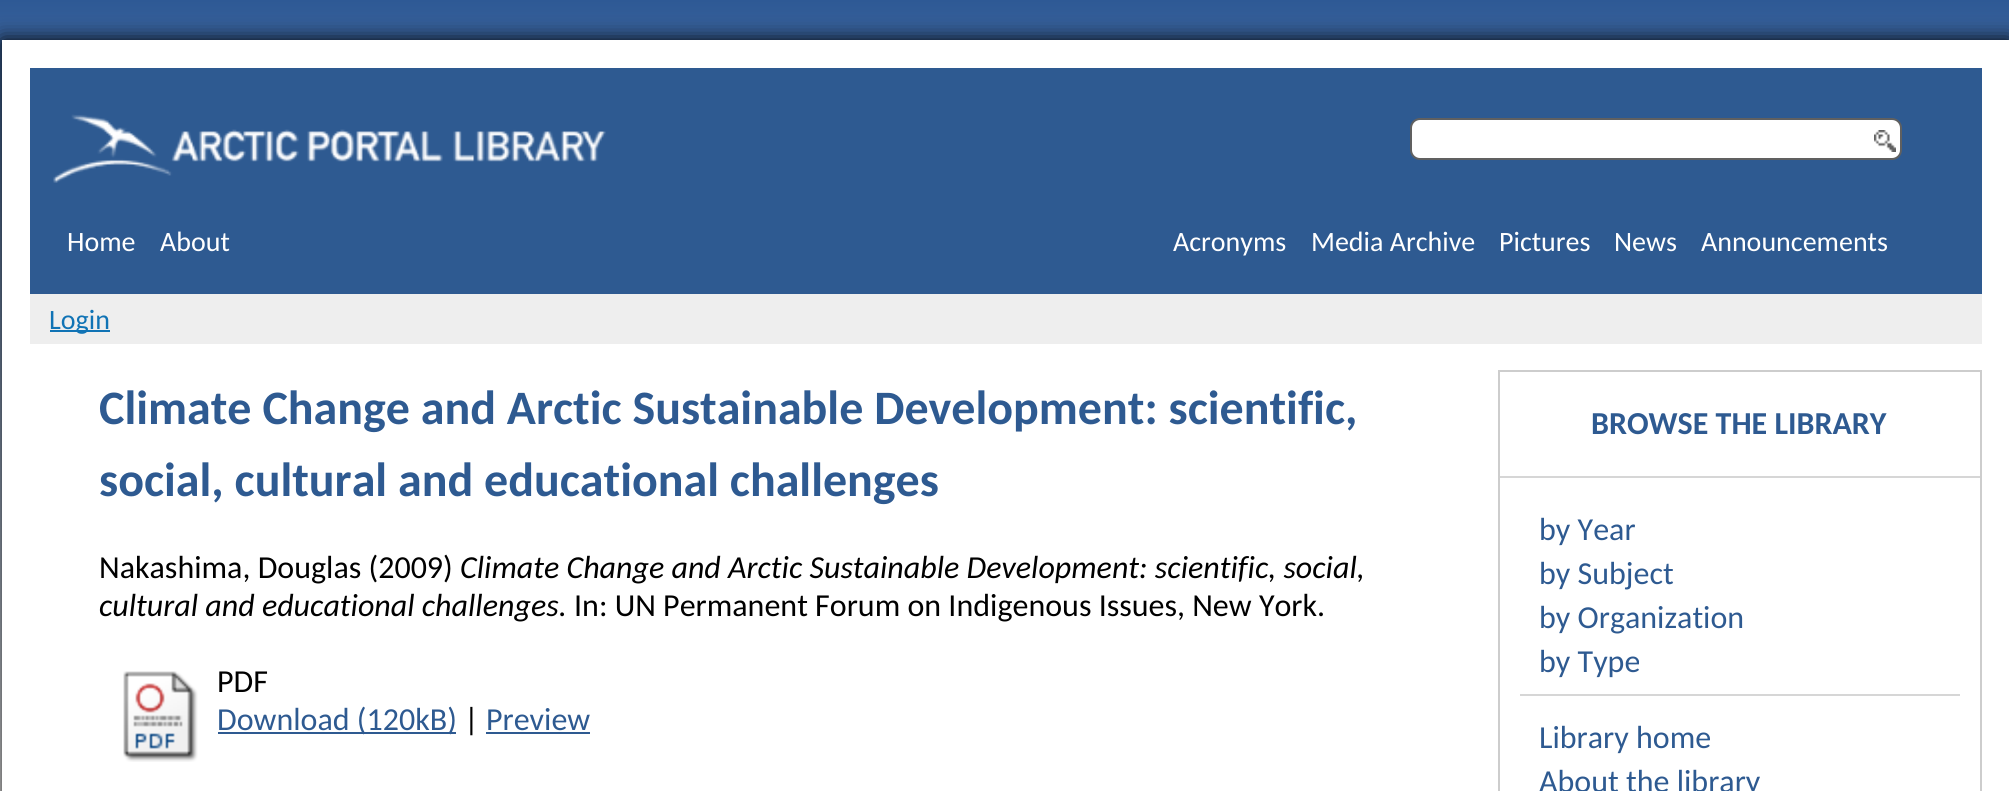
#include <cairo.h>
#include <math.h>
#include <stddef.h>

typedef struct { double x, y; const char *s; } line_t;

static void ink(cairo_t *ctx, unsigned color) {
    cairo_set_source_rgb(ctx, (color >> 16) / 255.0, (color >> 8 & 255) / 255.0, (color & 255) / 255.0);
}

static void round_path(cairo_t *ctx, double x, double y, double w, double h, double r) {
    cairo_new_sub_path(ctx);
    cairo_arc(ctx, x + w - r, y + h - r, r, 0, M_PI / 2);
    cairo_arc(ctx, x + r, y + h - r, r, M_PI / 2, M_PI);
    cairo_arc(ctx, x + r, y + r, r, M_PI, 1.5 * M_PI);
    cairo_arc(ctx, x + w - r, y + r, r, 1.5 * M_PI, 2 * M_PI);
    cairo_close_path(ctx);
}

static void blur_box(cairo_t *ctx, double x, double y, double w, double h, double r, double blur, double alpha) {
    cairo_push_group_with_content(ctx, CAIRO_CONTENT_ALPHA);
    cairo_set_operator(ctx, CAIRO_OPERATOR_SOURCE);
    for (int i = 15; i >= -15 && fmin(w, h) + blur * i / 3 > 0; i -= 2) {
        double e = blur * i / 6;
        cairo_set_source_rgba(ctx, 0, 0, 0, alpha * erfc((i - 1) / 8.5) / 2);
        round_path(ctx, x - e, y - e, w + 2 * e, h + 2 * e, fmax(0, fmin(r + e + blur * .6, fmin(w, h) / 2 + e)));
        cairo_fill(ctx);
    }
    cairo_pattern_t *soft = cairo_pop_group(ctx);
    cairo_mask(ctx, soft);
    cairo_pattern_destroy(soft);
}

static void paste(cairo_t *ctx, const char *path, double x, double y, double w, double h) {
    cairo_surface_t *image = cairo_image_surface_create_from_png(path);
    cairo_save(ctx);
    cairo_set_source_surface(ctx, image, x, y);
    cairo_rectangle(ctx, x, y, w, h);
    cairo_fill(ctx);
    cairo_restore(ctx);
    cairo_surface_destroy(image);
}

int main(void) {
    cairo_surface_t *surface = cairo_image_surface_create(CAIRO_FORMAT_RGB24, 2009, 791);
    cairo_t *ctx = cairo_create(surface);
    cairo_font_options_t *options = cairo_font_options_create();
    cairo_font_options_set_hint_metrics(options, CAIRO_HINT_METRICS_OFF);
    cairo_font_options_set_hint_style(options, CAIRO_HINT_STYLE_NONE);
    cairo_set_font_options(ctx, options);
    cairo_set_miter_limit(ctx, 4);
    cairo_pattern_t *gradient;
    ink(ctx, 0xFFFFFF);
    cairo_paint(ctx);
    gradient = cairo_pattern_create_linear(1005, 0, 1005, 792);
    cairo_pattern_add_color_stop_rgba(gradient, 0, 0.18, 0.349, 0.584, 1);
    cairo_pattern_add_color_stop_rgba(gradient, 1, 1, 1, 1, 1);
    cairo_set_source(ctx, gradient);
    cairo_pattern_destroy(gradient);
    cairo_rectangle(ctx, 0, 0, 2009, 783);
    cairo_fill(ctx);
    ink(ctx, 0x000000);
    blur_box(ctx, 2, 40, 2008, 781, 0, 10, 1);
    ink(ctx, 0xFFFFFF);
    cairo_rectangle(ctx, 2, 40, 2007, 751);
    cairo_fill(ctx);
    ink(ctx, 0x2E5A91);
    cairo_rectangle(ctx, 30, 68, 1952, 226);
    cairo_fill(ctx);
    paste(ctx, "media/1.png", 53, 114, 553, 69);
    ink(ctx, 0xFFFFFF);
    round_path(ctx, 1411, 119, 490, 40, 9);
    cairo_fill_preserve(ctx);
    ink(ctx, 0x606060);
    cairo_stroke(ctx);
    paste(ctx, "media/2.png", 1874, 130, 22, 22);
    cairo_select_font_face(ctx, "Carlito", CAIRO_FONT_SLANT_NORMAL, CAIRO_FONT_WEIGHT_NORMAL);
    cairo_set_font_size(ctx, 28);
    ink(ctx, 0xFFFFFF);
    {
        static const line_t items[] = {
            {67, 251, "Home"},
            {160, 251, "About"},
            {1173, 251, "Acronyms"},
            {1311, 251, "Media Archive"},
            {1499, 251, "Pictures"},
            {1614, 251, "News"},
            {1701, 251, "Announcements"},
        };
        for (size_t i = 0; i < sizeof items / sizeof *items; i++) {
            cairo_move_to(ctx, items[i].x, items[i].y);
            cairo_show_text(ctx, items[i].s);
        }
    }
    ink(ctx, 0xEEEEEE);
    cairo_rectangle(ctx, 30, 294, 1952, 50);
    cairo_fill(ctx);
    ink(ctx, 0x1073B5);
    cairo_rectangle(ctx, 50, 330, 60, 2);
    cairo_fill(ctx);
    cairo_move_to(ctx, 49, 329);
    cairo_show_text(ctx, "Login");
    cairo_select_font_face(ctx, "Carlito", CAIRO_FONT_SLANT_NORMAL, CAIRO_FONT_WEIGHT_BOLD);
    cairo_set_font_size(ctx, 48);
    ink(ctx, 0x2E5A91);
    cairo_move_to(ctx, 99, 424);
    cairo_show_text(ctx, "Climate Change and Arctic Sustainable Development: scientific,");
    cairo_move_to(ctx, 99, 496);
    cairo_show_text(ctx, "social, cultural and educational challenges");
    cairo_select_font_face(ctx, "Carlito", CAIRO_FONT_SLANT_NORMAL, CAIRO_FONT_WEIGHT_NORMAL);
    cairo_set_font_size(ctx, 32);
    ink(ctx, 0x000000);
    cairo_move_to(ctx, 99, 578);
    cairo_show_text(ctx, "Nakashima, Douglas (2009)");
    cairo_select_font_face(ctx, "Carlito", CAIRO_FONT_SLANT_ITALIC, CAIRO_FONT_WEIGHT_NORMAL);
    cairo_move_to(ctx, 460, 578);
    cairo_show_text(ctx, "Climate Change and Arctic Sustainable Development: scientific, social,");
    cairo_move_to(ctx, 99, 616);
    cairo_show_text(ctx, "cultural and educational challenges.");
    cairo_select_font_face(ctx, "Carlito", CAIRO_FONT_SLANT_NORMAL, CAIRO_FONT_WEIGHT_NORMAL);
    cairo_move_to(ctx, 574, 616);
    cairo_show_text(ctx, "In: UN Permanent Forum on Indigenous Issues, New York.");
    paste(ctx, "media/3.png", 123, 671, 75, 91);
    cairo_move_to(ctx, 217, 692);
    cairo_show_text(ctx, "PDF");
    ink(ctx, 0x2E5A91);
    cairo_rectangle(ctx, 218, 732, 238, 2);
    cairo_fill(ctx);
    cairo_move_to(ctx, 217, 730);
    cairo_show_text(ctx, "Download (120kB)");
    ink(ctx, 0x000000);
    cairo_move_to(ctx, 464, 730);
    cairo_show_text(ctx, "|");
    ink(ctx, 0x2E5A91);
    cairo_move_to(ctx, 486, 730);
    cairo_show_text(ctx, "Preview");
    cairo_rectangle(ctx, 486, 732, 104, 2);
    cairo_fill(ctx);
    cairo_rectangle(ctx, 1499, 371, 482, 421);
    ink(ctx, 0xCDCDCD);
    cairo_stroke(ctx);
    ink(ctx, 0xD6D6D6);
    cairo_rectangle(ctx, 1500, 476, 480, 2);
    cairo_fill(ctx);
    cairo_select_font_face(ctx, "Carlito", CAIRO_FONT_SLANT_NORMAL, CAIRO_FONT_WEIGHT_BOLD);
    ink(ctx, 0x2E5A91);
    cairo_move_to(ctx, 1591, 434);
    cairo_show_text(ctx, "BROWSE THE LIBRARY");
    cairo_select_font_face(ctx, "Carlito", CAIRO_FONT_SLANT_NORMAL, CAIRO_FONT_WEIGHT_NORMAL);
    {
        static const line_t items[] = {
            {1539, 540, "by Year"},
            {1539, 584, "by Subject"},
            {1539, 628, "by Organization"},
            {1539, 672, "by Type"},
        };
        for (size_t i = 0; i < sizeof items / sizeof *items; i++) {
            cairo_move_to(ctx, items[i].x, items[i].y);
            cairo_show_text(ctx, items[i].s);
        }
    }
    ink(ctx, 0xD6D6D6);
    cairo_rectangle(ctx, 1520, 694, 440, 2);
    cairo_fill(ctx);
    ink(ctx, 0x2E5A91);
    cairo_move_to(ctx, 1539, 748);
    cairo_show_text(ctx, "Library home");
    cairo_move_to(ctx, 1539, 792);
    cairo_show_text(ctx, "About the library");
    cairo_surface_write_to_png(surface, "image.png");
    cairo_font_options_destroy(options);
    cairo_destroy(ctx);
    cairo_surface_destroy(surface);
    return 0;
}
